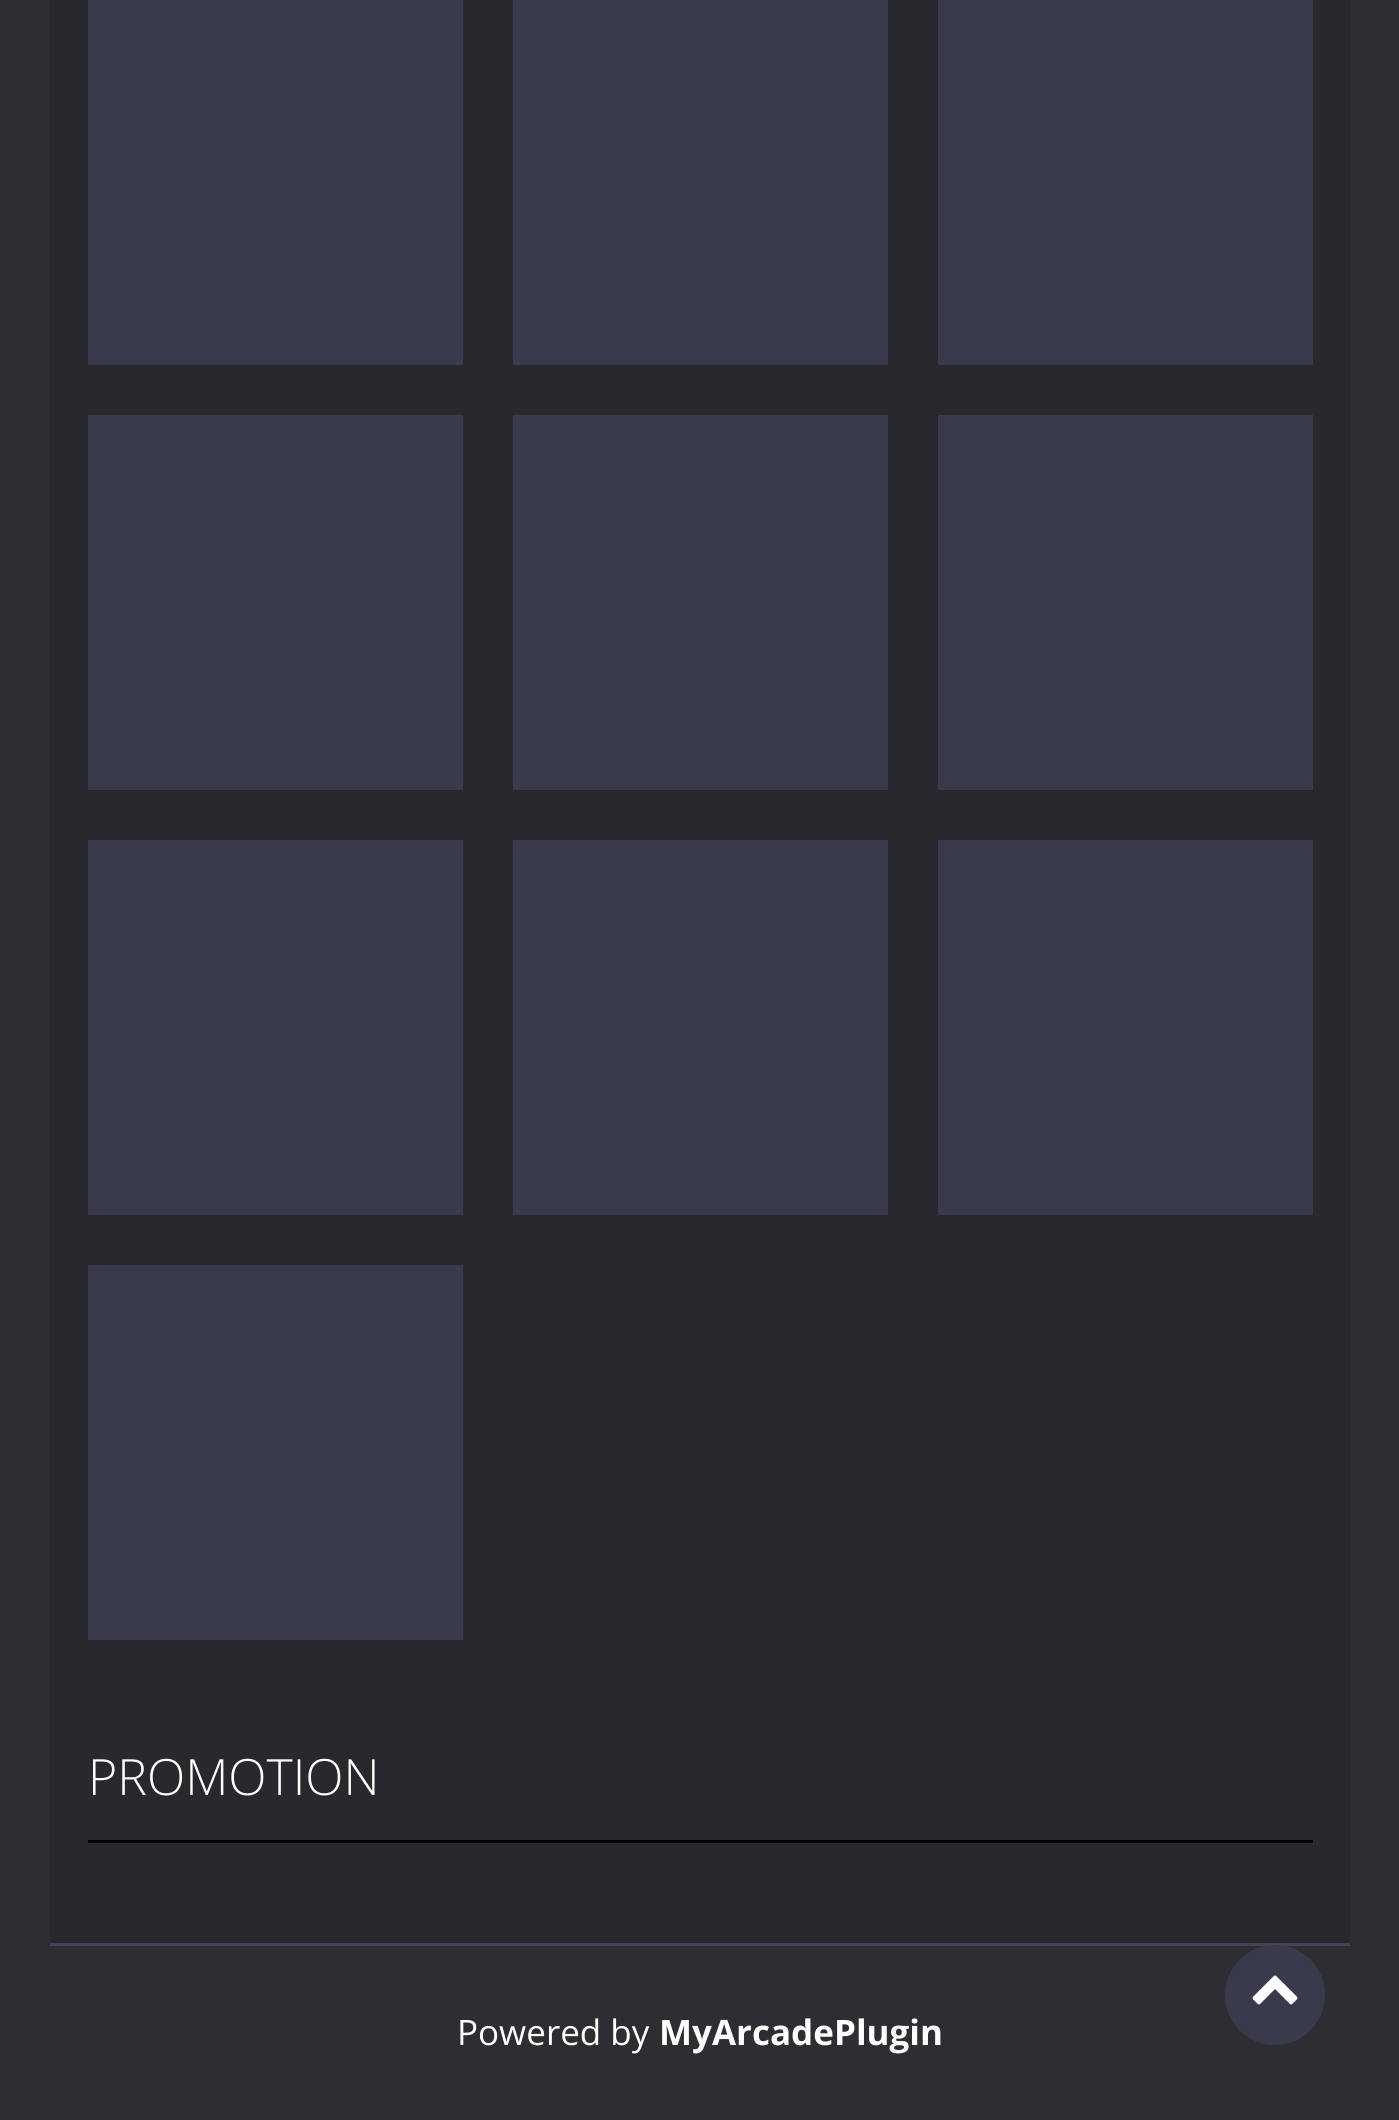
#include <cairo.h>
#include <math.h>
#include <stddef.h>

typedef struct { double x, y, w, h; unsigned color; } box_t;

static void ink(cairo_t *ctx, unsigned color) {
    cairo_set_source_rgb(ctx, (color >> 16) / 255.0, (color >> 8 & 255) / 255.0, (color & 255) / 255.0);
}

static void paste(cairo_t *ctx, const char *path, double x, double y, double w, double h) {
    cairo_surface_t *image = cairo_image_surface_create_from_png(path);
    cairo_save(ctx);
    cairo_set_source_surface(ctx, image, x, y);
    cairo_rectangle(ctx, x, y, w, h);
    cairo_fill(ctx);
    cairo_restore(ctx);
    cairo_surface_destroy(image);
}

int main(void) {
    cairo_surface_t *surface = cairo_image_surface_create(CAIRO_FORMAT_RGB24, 1399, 2120);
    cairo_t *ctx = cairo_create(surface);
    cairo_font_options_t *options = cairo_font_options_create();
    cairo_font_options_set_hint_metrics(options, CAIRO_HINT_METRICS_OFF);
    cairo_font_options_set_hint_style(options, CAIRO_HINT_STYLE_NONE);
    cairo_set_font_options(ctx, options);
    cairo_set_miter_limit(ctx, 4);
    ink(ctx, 0x2E2E32);
    cairo_paint(ctx);
    {
        static const box_t items[] = {
            {50, 0, 1300, 1943, 0x29292D},
            {88, 0, 375, 365, 0x393A4C},
            {513, 0, 375, 365, 0x393A4C},
            {938, 0, 375, 365, 0x393A4C},
            {88, 415, 375, 375, 0x393A4C},
            {513, 415, 375, 375, 0x393A4C},
            {938, 415, 375, 375, 0x393A4C},
            {88, 840, 375, 375, 0x393A4C},
            {513, 840, 375, 375, 0x393A4C},
            {938, 840, 375, 375, 0x393A4C},
            {88, 1265, 375, 375, 0x393A4C},
            {88, 1840, 1225, 3, 0x000000},
        };
        for (size_t i = 0; i < sizeof items / sizeof *items; i++) {
            ink(ctx, items[i].color);
            cairo_rectangle(ctx, items[i].x, items[i].y, items[i].w, items[i].h);
            cairo_fill(ctx);
        }
    }
    cairo_select_font_face(ctx, "Open Sans Light", CAIRO_FONT_SLANT_NORMAL, CAIRO_FONT_WEIGHT_NORMAL);
    cairo_set_font_size(ctx, 50);
    ink(ctx, 0xFFFFFF);
    cairo_move_to(ctx, 88, 1795);
    cairo_show_text(ctx, "PROMOTION");
    ink(ctx, 0x424558);
    cairo_rectangle(ctx, 50, 1943, 1300, 3);
    cairo_fill(ctx);
    cairo_select_font_face(ctx, "Open Sans", CAIRO_FONT_SLANT_NORMAL, CAIRO_FONT_WEIGHT_NORMAL);
    cairo_set_font_size(ctx, 35);
    ink(ctx, 0xFFFFFF);
    cairo_move_to(ctx, 457, 2045);
    cairo_show_text(ctx, "Powered by");
    cairo_select_font_face(ctx, "Open Sans", CAIRO_FONT_SLANT_NORMAL, CAIRO_FONT_WEIGHT_BOLD);
    cairo_move_to(ctx, 659, 2045);
    cairo_show_text(ctx, "MyArcadePlugin");
    ink(ctx, 0x393A4C);
    cairo_new_path(ctx);
    cairo_arc(ctx, 1275, 1995, 50, 0, 2 * M_PI);
    cairo_fill(ctx);
    paste(ctx, "media/1.png", 1252, 1975, 46, 30);
    cairo_surface_write_to_png(surface, "image.png");
    cairo_font_options_destroy(options);
    cairo_destroy(ctx);
    cairo_surface_destroy(surface);
    return 0;
}
